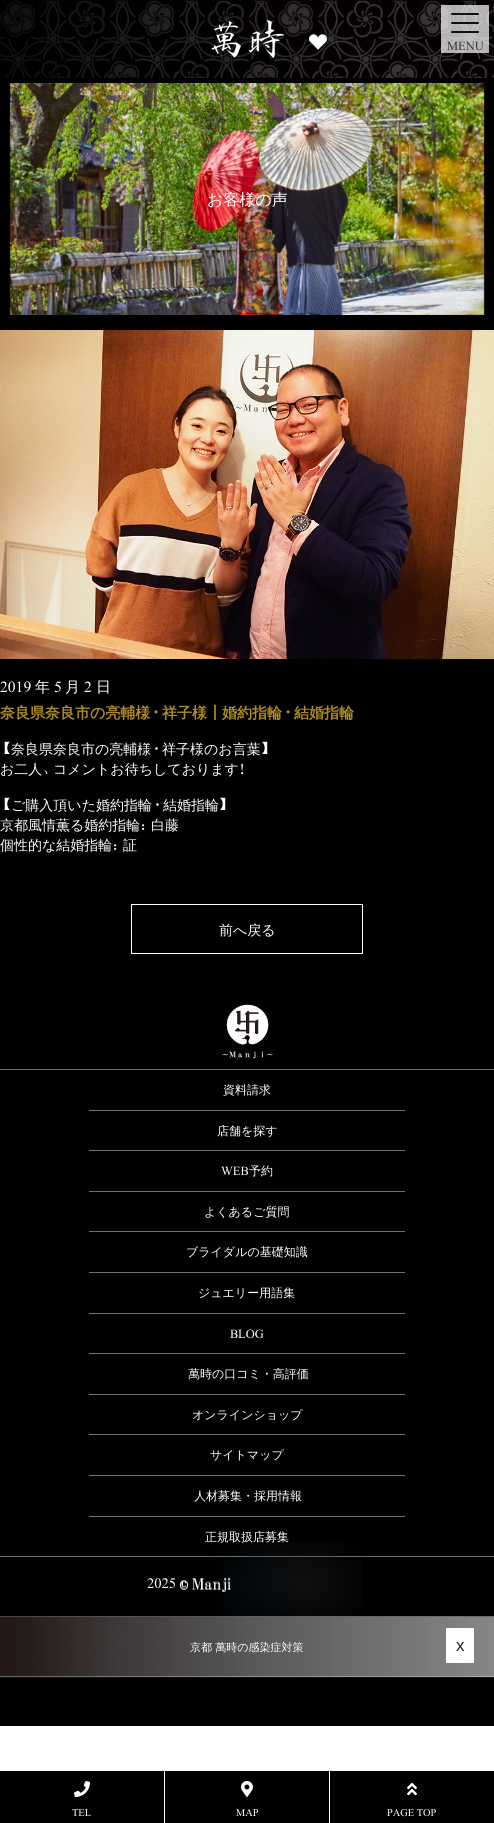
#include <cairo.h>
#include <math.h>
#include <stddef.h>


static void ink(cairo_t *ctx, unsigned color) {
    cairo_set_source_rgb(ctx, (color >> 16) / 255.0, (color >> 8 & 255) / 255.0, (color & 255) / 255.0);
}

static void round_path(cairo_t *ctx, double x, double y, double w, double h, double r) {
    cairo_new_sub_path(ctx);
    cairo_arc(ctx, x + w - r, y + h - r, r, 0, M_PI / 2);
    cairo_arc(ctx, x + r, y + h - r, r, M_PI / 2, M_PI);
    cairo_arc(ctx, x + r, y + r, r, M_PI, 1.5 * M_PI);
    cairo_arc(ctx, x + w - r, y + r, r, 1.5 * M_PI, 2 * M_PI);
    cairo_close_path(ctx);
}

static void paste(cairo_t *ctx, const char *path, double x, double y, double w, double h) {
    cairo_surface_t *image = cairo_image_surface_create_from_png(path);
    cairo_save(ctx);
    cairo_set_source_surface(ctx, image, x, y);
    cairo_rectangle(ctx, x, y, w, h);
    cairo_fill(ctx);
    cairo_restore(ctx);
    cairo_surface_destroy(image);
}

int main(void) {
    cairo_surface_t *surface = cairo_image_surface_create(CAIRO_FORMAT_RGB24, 494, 1823);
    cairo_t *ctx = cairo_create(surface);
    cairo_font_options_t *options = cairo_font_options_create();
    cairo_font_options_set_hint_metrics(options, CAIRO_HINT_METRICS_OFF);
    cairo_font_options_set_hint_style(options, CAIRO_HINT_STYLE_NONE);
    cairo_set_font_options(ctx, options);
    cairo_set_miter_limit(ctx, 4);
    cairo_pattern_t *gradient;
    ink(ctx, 0xFFFFFF);
    cairo_paint(ctx);
    ink(ctx, 0x000000);
    cairo_rectangle(ctx, 0, 78, 494, 1648);
    cairo_fill(ctx);
    ink(ctx, 0x040000);
    cairo_rectangle(ctx, 0, 0, 494, 78);
    cairo_fill(ctx);
    paste(ctx, "media/1.png", 0, 0, 494, 78);
    gradient = cairo_pattern_create_linear(0, 39, 494, 39);
    cairo_pattern_add_color_stop_rgba(gradient, 0, 0, 0, 0, 0.7);
    cairo_pattern_add_color_stop_rgba(gradient, 0.73, 0, 0, 0, 0);
    cairo_pattern_add_color_stop_rgba(gradient, 1, 1, 1, 1, 0);
    cairo_set_source(ctx, gradient);
    cairo_pattern_destroy(gradient);
    cairo_rectangle(ctx, 0, 0, 335, 78);
    cairo_fill(ctx);
    paste(ctx, "media/2.png", 211, 20, 73, 38);
    paste(ctx, "media/3.png", 309, 34, 18, 16);
    cairo_set_source_rgba(ctx, 1, 1, 1, 0.7);
    cairo_rectangle(ctx, 441, 5, 48, 48);
    cairo_fill(ctx);
    ink(ctx, 0x111111);
    round_path(ctx, 451, 13, 28, 2, 1);
    cairo_fill(ctx);
    round_path(ctx, 451, 22, 28, 2, 1);
    cairo_fill(ctx);
    round_path(ctx, 451, 31, 28, 2, 1);
    cairo_fill(ctx);
    cairo_select_font_face(ctx, "Nuosu SIL", CAIRO_FONT_SLANT_NORMAL, CAIRO_FONT_WEIGHT_NORMAL);
    cairo_set_font_size(ctx, 12);
    ink(ctx, 0x333333);
    cairo_move_to(ctx, 447, 50);
    cairo_show_text(ctx, "MENU");
    paste(ctx, "media/4.png", 9, 83, 476, 232);
    cairo_select_font_face(ctx, "WenQuanYi Zen Hei Medium", CAIRO_FONT_SLANT_NORMAL, CAIRO_FONT_WEIGHT_NORMAL);
    cairo_set_font_size(ctx, 16);
    ink(ctx, 0xFFFFFF);
    cairo_move_to(ctx, 207, 205);
    cairo_show_text(ctx, "お客様の声");
    paste(ctx, "media/5.png", 0, 330, 494, 329);
    cairo_select_font_face(ctx, "Nuosu SIL", CAIRO_FONT_SLANT_NORMAL, CAIRO_FONT_WEIGHT_NORMAL);
    cairo_set_font_size(ctx, 15);
    cairo_move_to(ctx, 0, 692);
    cairo_show_text(ctx, "2019");
    cairo_select_font_face(ctx, "WenQuanYi Zen Hei Medium", CAIRO_FONT_SLANT_NORMAL, CAIRO_FONT_WEIGHT_NORMAL);
    cairo_move_to(ctx, 35, 692);
    cairo_show_text(ctx, "年");
    cairo_select_font_face(ctx, "Nuosu SIL", CAIRO_FONT_SLANT_NORMAL, CAIRO_FONT_WEIGHT_NORMAL);
    cairo_move_to(ctx, 54, 692);
    cairo_show_text(ctx, "5");
    cairo_select_font_face(ctx, "WenQuanYi Zen Hei Medium", CAIRO_FONT_SLANT_NORMAL, CAIRO_FONT_WEIGHT_NORMAL);
    cairo_move_to(ctx, 65, 692);
    cairo_show_text(ctx, "月");
    cairo_select_font_face(ctx, "Nuosu SIL", CAIRO_FONT_SLANT_NORMAL, CAIRO_FONT_WEIGHT_NORMAL);
    cairo_move_to(ctx, 84, 692);
    cairo_show_text(ctx, "2");
    cairo_select_font_face(ctx, "WenQuanYi Zen Hei Medium", CAIRO_FONT_SLANT_NORMAL, CAIRO_FONT_WEIGHT_NORMAL);
    cairo_move_to(ctx, 96, 692);
    cairo_show_text(ctx, "日");
    cairo_select_font_face(ctx, "WenQuanYi Zen Hei", CAIRO_FONT_SLANT_NORMAL, CAIRO_FONT_WEIGHT_BOLD);
    ink(ctx, 0xB08D22);
    cairo_move_to(ctx, 0, 718);
    cairo_show_text(ctx, "奈良県奈良市の亮輔様");
    cairo_select_font_face(ctx, "Nuosu SIL", CAIRO_FONT_SLANT_NORMAL, CAIRO_FONT_WEIGHT_BOLD);
    cairo_move_to(ctx, 150, 718);
    cairo_show_text(ctx, "・");
    cairo_select_font_face(ctx, "WenQuanYi Zen Hei", CAIRO_FONT_SLANT_NORMAL, CAIRO_FONT_WEIGHT_BOLD);
    cairo_move_to(ctx, 162, 718);
    cairo_show_text(ctx, "祥子様┃婚約指輪");
    cairo_select_font_face(ctx, "Nuosu SIL", CAIRO_FONT_SLANT_NORMAL, CAIRO_FONT_WEIGHT_BOLD);
    cairo_move_to(ctx, 282, 718);
    cairo_show_text(ctx, "・");
    cairo_select_font_face(ctx, "WenQuanYi Zen Hei", CAIRO_FONT_SLANT_NORMAL, CAIRO_FONT_WEIGHT_BOLD);
    cairo_move_to(ctx, 294, 718);
    cairo_show_text(ctx, "結婚指輪");
    cairo_select_font_face(ctx, "Nuosu SIL", CAIRO_FONT_SLANT_NORMAL, CAIRO_FONT_WEIGHT_NORMAL);
    cairo_set_font_size(ctx, 14);
    ink(ctx, 0xFFFFFF);
    cairo_move_to(ctx, 0, 754);
    cairo_show_text(ctx, "【");
    cairo_select_font_face(ctx, "WenQuanYi Zen Hei Medium", CAIRO_FONT_SLANT_NORMAL, CAIRO_FONT_WEIGHT_NORMAL);
    cairo_move_to(ctx, 11, 754);
    cairo_show_text(ctx, "奈良県奈良市の亮輔様");
    cairo_select_font_face(ctx, "Nuosu SIL", CAIRO_FONT_SLANT_NORMAL, CAIRO_FONT_WEIGHT_NORMAL);
    cairo_move_to(ctx, 151, 754);
    cairo_show_text(ctx, "・");
    cairo_select_font_face(ctx, "WenQuanYi Zen Hei Medium", CAIRO_FONT_SLANT_NORMAL, CAIRO_FONT_WEIGHT_NORMAL);
    cairo_move_to(ctx, 162, 754);
    cairo_show_text(ctx, "祥子様のお言葉");
    cairo_select_font_face(ctx, "Nuosu SIL", CAIRO_FONT_SLANT_NORMAL, CAIRO_FONT_WEIGHT_NORMAL);
    cairo_move_to(ctx, 261, 754);
    cairo_show_text(ctx, "】");
    cairo_select_font_face(ctx, "WenQuanYi Zen Hei Medium", CAIRO_FONT_SLANT_NORMAL, CAIRO_FONT_WEIGHT_NORMAL);
    cairo_move_to(ctx, 0, 774);
    cairo_show_text(ctx, "お二人");
    cairo_select_font_face(ctx, "Nuosu SIL", CAIRO_FONT_SLANT_NORMAL, CAIRO_FONT_WEIGHT_NORMAL);
    cairo_move_to(ctx, 42, 774);
    cairo_show_text(ctx, "、");
    cairo_select_font_face(ctx, "WenQuanYi Zen Hei Medium", CAIRO_FONT_SLANT_NORMAL, CAIRO_FONT_WEIGHT_NORMAL);
    cairo_move_to(ctx, 53, 774);
    cairo_show_text(ctx, "コメントお待ちしております");
    cairo_select_font_face(ctx, "Nuosu SIL", CAIRO_FONT_SLANT_NORMAL, CAIRO_FONT_WEIGHT_NORMAL);
    cairo_move_to(ctx, 239, 774);
    cairo_show_text(ctx, "！");
    cairo_move_to(ctx, 0, 810);
    cairo_show_text(ctx, "【");
    cairo_select_font_face(ctx, "WenQuanYi Zen Hei Medium", CAIRO_FONT_SLANT_NORMAL, CAIRO_FONT_WEIGHT_NORMAL);
    cairo_move_to(ctx, 11, 810);
    cairo_show_text(ctx, "ご購入頂いた婚約指輪");
    cairo_select_font_face(ctx, "Nuosu SIL", CAIRO_FONT_SLANT_NORMAL, CAIRO_FONT_WEIGHT_NORMAL);
    cairo_move_to(ctx, 152, 810);
    cairo_show_text(ctx, "・");
    cairo_select_font_face(ctx, "WenQuanYi Zen Hei Medium", CAIRO_FONT_SLANT_NORMAL, CAIRO_FONT_WEIGHT_NORMAL);
    cairo_move_to(ctx, 163, 810);
    cairo_show_text(ctx, "結婚指輪");
    cairo_select_font_face(ctx, "Nuosu SIL", CAIRO_FONT_SLANT_NORMAL, CAIRO_FONT_WEIGHT_NORMAL);
    cairo_move_to(ctx, 219, 810);
    cairo_show_text(ctx, "】");
    cairo_select_font_face(ctx, "WenQuanYi Zen Hei Medium", CAIRO_FONT_SLANT_NORMAL, CAIRO_FONT_WEIGHT_NORMAL);
    cairo_move_to(ctx, 0, 830);
    cairo_show_text(ctx, "京都風情薫る婚約指輪");
    cairo_select_font_face(ctx, "Nuosu SIL", CAIRO_FONT_SLANT_NORMAL, CAIRO_FONT_WEIGHT_NORMAL);
    cairo_move_to(ctx, 140, 830);
    cairo_show_text(ctx, "：");
    cairo_select_font_face(ctx, "WenQuanYi Zen Hei Medium", CAIRO_FONT_SLANT_NORMAL, CAIRO_FONT_WEIGHT_NORMAL);
    cairo_move_to(ctx, 151, 830);
    cairo_show_text(ctx, "白藤");
    cairo_move_to(ctx, 0, 850);
    cairo_show_text(ctx, "個性的な結婚指輪");
    cairo_select_font_face(ctx, "Nuosu SIL", CAIRO_FONT_SLANT_NORMAL, CAIRO_FONT_WEIGHT_NORMAL);
    cairo_move_to(ctx, 112, 850);
    cairo_show_text(ctx, "：");
    cairo_select_font_face(ctx, "WenQuanYi Zen Hei Medium", CAIRO_FONT_SLANT_NORMAL, CAIRO_FONT_WEIGHT_NORMAL);
    cairo_move_to(ctx, 123, 850);
    cairo_show_text(ctx, "証");
    cairo_rectangle(ctx, 131.5, 904.5, 231, 49);
    cairo_set_line_width(ctx, 1);
    cairo_stroke(ctx);
    cairo_move_to(ctx, 219, 935);
    cairo_show_text(ctx, "前へ戻る");
    paste(ctx, "media/6.png", 222, 1004, 51, 55);
    ink(ctx, 0x727171);
    cairo_rectangle(ctx, 0, 1069, 494, 1);
    cairo_fill(ctx);
    cairo_rectangle(ctx, 0, 1556, 494, 1);
    cairo_fill(ctx);
    cairo_set_font_size(ctx, 12);
    ink(ctx, 0xFFFFFF);
    cairo_move_to(ctx, 223, 1094);
    cairo_show_text(ctx, "資料請求");
    ink(ctx, 0x727171);
    cairo_rectangle(ctx, 89, 1110, 316, 1);
    cairo_fill(ctx);
    ink(ctx, 0xFFFFFF);
    cairo_move_to(ctx, 217, 1135);
    cairo_show_text(ctx, "店舗を探す");
    ink(ctx, 0x727171);
    cairo_rectangle(ctx, 89, 1150, 316, 1);
    cairo_fill(ctx);
    cairo_select_font_face(ctx, "Nuosu SIL", CAIRO_FONT_SLANT_NORMAL, CAIRO_FONT_WEIGHT_NORMAL);
    ink(ctx, 0xFFFFFF);
    cairo_move_to(ctx, 221, 1175);
    cairo_show_text(ctx, "WEB");
    cairo_select_font_face(ctx, "WenQuanYi Zen Hei Medium", CAIRO_FONT_SLANT_NORMAL, CAIRO_FONT_WEIGHT_NORMAL);
    cairo_move_to(ctx, 249, 1175);
    cairo_show_text(ctx, "予約");
    ink(ctx, 0x727171);
    cairo_rectangle(ctx, 89, 1191, 316, 1);
    cairo_fill(ctx);
    ink(ctx, 0xFFFFFF);
    cairo_move_to(ctx, 204, 1216);
    cairo_show_text(ctx, "よくあるご質問");
    ink(ctx, 0x727171);
    cairo_rectangle(ctx, 89, 1231, 316, 1);
    cairo_fill(ctx);
    ink(ctx, 0xFFFFFF);
    cairo_move_to(ctx, 186, 1256);
    cairo_show_text(ctx, "ブライダルの基礎知識");
    ink(ctx, 0x727171);
    cairo_rectangle(ctx, 89, 1272, 316, 1);
    cairo_fill(ctx);
    ink(ctx, 0xFFFFFF);
    cairo_move_to(ctx, 198, 1297);
    cairo_show_text(ctx, "ジュエリー用語集");
    ink(ctx, 0x727171);
    cairo_rectangle(ctx, 89, 1313, 316, 1);
    cairo_fill(ctx);
    cairo_select_font_face(ctx, "Nuosu SIL", CAIRO_FONT_SLANT_NORMAL, CAIRO_FONT_WEIGHT_NORMAL);
    ink(ctx, 0xFFFFFF);
    cairo_move_to(ctx, 230, 1338);
    cairo_show_text(ctx, "BLOG");
    ink(ctx, 0x727171);
    cairo_rectangle(ctx, 89, 1353, 316, 1);
    cairo_fill(ctx);
    cairo_select_font_face(ctx, "WenQuanYi Zen Hei Medium", CAIRO_FONT_SLANT_NORMAL, CAIRO_FONT_WEIGHT_NORMAL);
    ink(ctx, 0xFFFFFF);
    cairo_move_to(ctx, 188, 1378);
    cairo_show_text(ctx, "萬時の口コミ・高評価");
    ink(ctx, 0x727171);
    cairo_rectangle(ctx, 89, 1394, 316, 1);
    cairo_fill(ctx);
    ink(ctx, 0xFFFFFF);
    cairo_move_to(ctx, 192, 1419);
    cairo_show_text(ctx, "オンラインショップ");
    ink(ctx, 0x727171);
    cairo_rectangle(ctx, 89, 1434, 316, 1);
    cairo_fill(ctx);
    ink(ctx, 0xFFFFFF);
    cairo_move_to(ctx, 210, 1459);
    cairo_show_text(ctx, "サイトマップ");
    ink(ctx, 0x727171);
    cairo_rectangle(ctx, 89, 1475, 316, 1);
    cairo_fill(ctx);
    ink(ctx, 0xFFFFFF);
    cairo_move_to(ctx, 194, 1500);
    cairo_show_text(ctx, "人材募集・採用情報");
    ink(ctx, 0x727171);
    cairo_rectangle(ctx, 89, 1516, 316, 1);
    cairo_fill(ctx);
    ink(ctx, 0xFFFFFF);
    cairo_move_to(ctx, 205, 1541);
    cairo_show_text(ctx, "正規取扱店募集");
    cairo_select_font_face(ctx, "Nuosu SIL", CAIRO_FONT_SLANT_NORMAL, CAIRO_FONT_WEIGHT_NORMAL);
    cairo_set_font_size(ctx, 14);
    cairo_move_to(ctx, 147, 1588);
    cairo_show_text(ctx, "2025");
    paste(ctx, "media/7.png", 179, 1577, 52, 15);
    paste(ctx, "media/8.png", 214, 1542, 148, 76);
    ink(ctx, 0x030000);
    cairo_rectangle(ctx, 0, 1771, 164, 52);
    cairo_fill(ctx);
    paste(ctx, "media/9.png", 74, 1781, 16, 16);
    cairo_set_font_size(ctx, 10);
    ink(ctx, 0xFFFFFF);
    cairo_move_to(ctx, 72, 1816);
    cairo_show_text(ctx, "TEL");
    ink(ctx, 0x030000);
    cairo_rectangle(ctx, 165, 1771, 164, 52);
    cairo_fill(ctx);
    paste(ctx, "media/10.png", 241, 1781, 12, 16);
    ink(ctx, 0xFFFFFF);
    cairo_move_to(ctx, 236, 1816);
    cairo_show_text(ctx, "MAP");
    ink(ctx, 0x030000);
    cairo_rectangle(ctx, 330, 1771, 164, 52);
    cairo_fill(ctx);
    paste(ctx, "media/11.png", 407, 1782, 10, 14);
    ink(ctx, 0xFFFFFF);
    cairo_move_to(ctx, 387, 1816);
    cairo_show_text(ctx, "PAGE TOP");
    paste(ctx, "media/12.png", 0, 1616, 494, 62);
    cairo_select_font_face(ctx, "WenQuanYi Zen Hei Medium", CAIRO_FONT_SLANT_NORMAL, CAIRO_FONT_WEIGHT_NORMAL);
    cairo_set_font_size(ctx, 11);
    cairo_move_to(ctx, 190, 1651);
    cairo_show_text(ctx, "京都 萬時の感染症対策");
    cairo_rectangle(ctx, 446, 1628, 28, 35);
    cairo_fill(ctx);
    cairo_select_font_face(ctx, "Liberation Sans", CAIRO_FONT_SLANT_NORMAL, CAIRO_FONT_WEIGHT_NORMAL);
    cairo_set_font_size(ctx, 17);
    ink(ctx, 0x231F20);
    cairo_move_to(ctx, 456, 1651);
    cairo_show_text(ctx, "x");
    cairo_surface_write_to_png(surface, "image.png");
    cairo_font_options_destroy(options);
    cairo_destroy(ctx);
    cairo_surface_destroy(surface);
    return 0;
}
